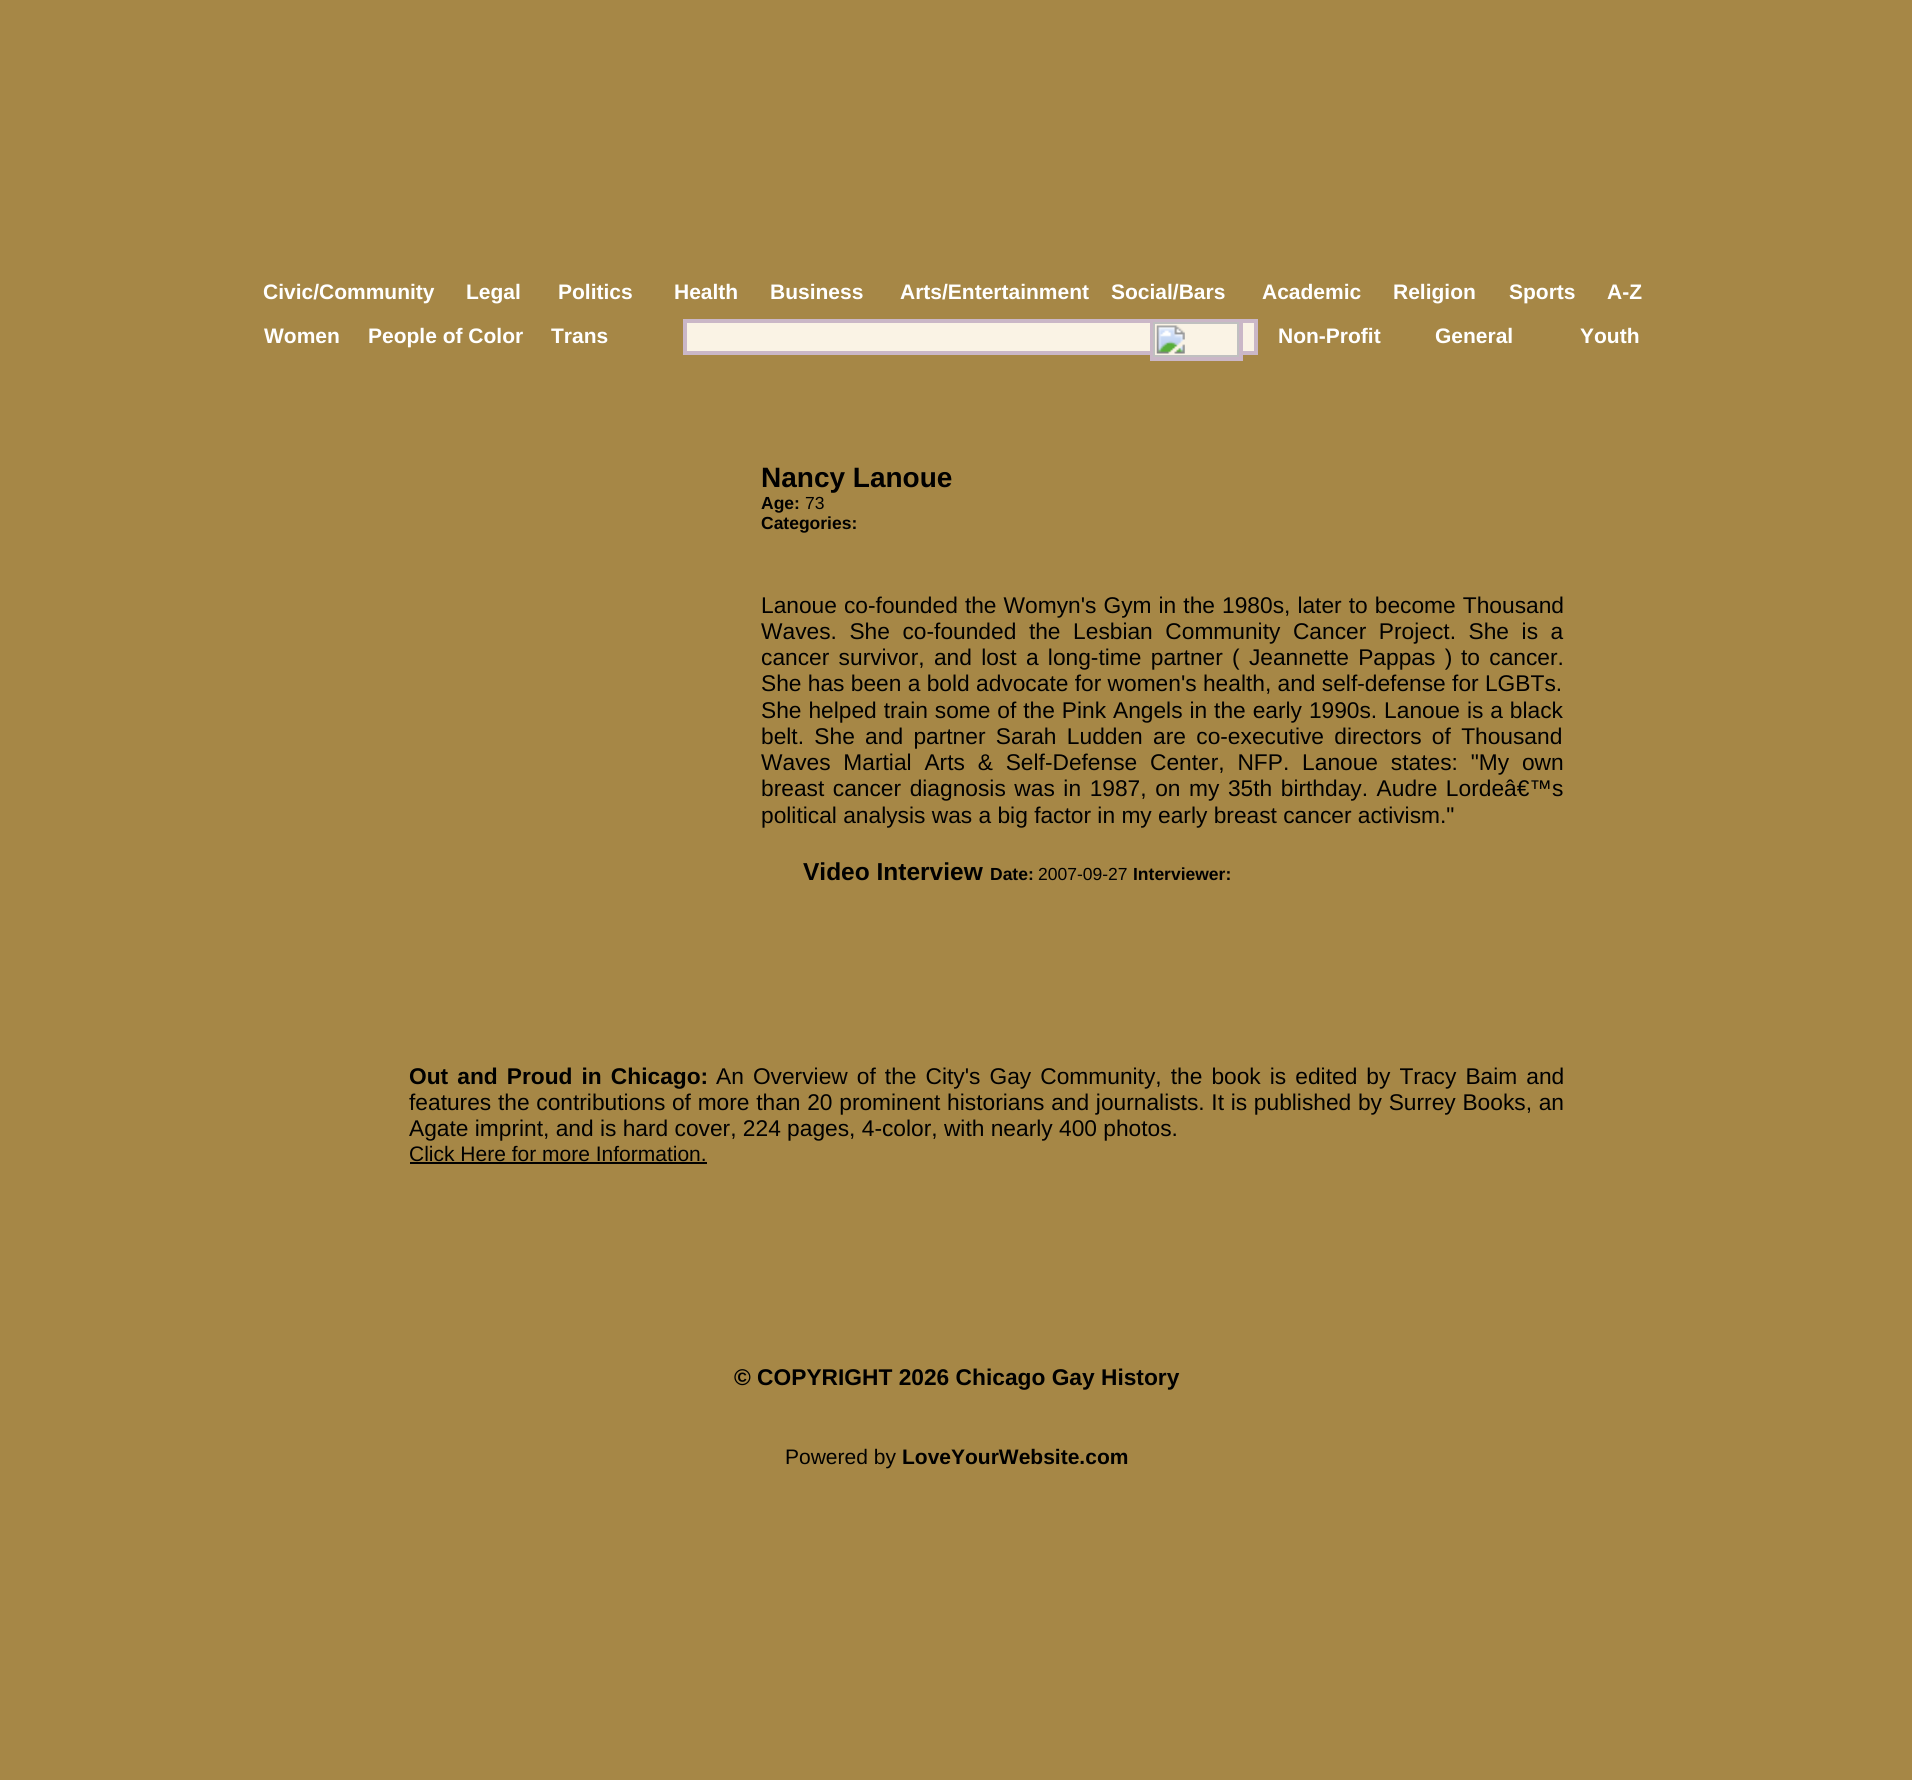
#include <cairo.h>
#include <math.h>
#include <stddef.h>

typedef struct { double x, y; const char *s; } line_t;

static void ink(cairo_t *ctx, unsigned color) {
    cairo_set_source_rgb(ctx, (color >> 16) / 255.0, (color >> 8 & 255) / 255.0, (color & 255) / 255.0);
}

static void write_spaced(cairo_t *ctx, double x, double y, const char *s, double letter, double word) {
    cairo_move_to(ctx, x, y);
    while (*s) {
        char ch[5] = {0};
        int n = 0;
        do ch[n++] = *s++; while ((*s & 0xC0) == 0x80);
        cairo_show_text(ctx, ch);
        cairo_rel_move_to(ctx, letter + word * (*ch == ' '), 0);
    }
}

static void paste(cairo_t *ctx, const char *path, double x, double y, double w, double h) {
    cairo_surface_t *image = cairo_image_surface_create_from_png(path);
    cairo_save(ctx);
    cairo_set_source_surface(ctx, image, x, y);
    cairo_rectangle(ctx, x, y, w, h);
    cairo_fill(ctx);
    cairo_restore(ctx);
    cairo_surface_destroy(image);
}

int main(void) {
    cairo_surface_t *surface = cairo_image_surface_create(CAIRO_FORMAT_RGB24, 1912, 1780);
    cairo_t *ctx = cairo_create(surface);
    cairo_font_options_t *options = cairo_font_options_create();
    cairo_font_options_set_hint_metrics(options, CAIRO_HINT_METRICS_OFF);
    cairo_font_options_set_hint_style(options, CAIRO_HINT_STYLE_NONE);
    cairo_set_font_options(ctx, options);
    cairo_set_miter_limit(ctx, 4);
    ink(ctx, 0xA68746);
    cairo_paint(ctx);
    cairo_select_font_face(ctx, "Liberation Sans", CAIRO_FONT_SLANT_NORMAL, CAIRO_FONT_WEIGHT_BOLD);
    cairo_set_font_size(ctx, 21);
    ink(ctx, 0xFFFFFF);
    {
        static const line_t items[] = {
            {263, 299, "Civic/Community"},
            {466, 299, "Legal"},
            {558, 299, "Politics"},
            {674, 299, "Health"},
            {770, 299, "Business"},
            {900, 299, "Arts/Entertainment"},
            {1111, 299, "Social/Bars"},
            {1262, 299, "Academic"},
            {1393, 299, "Religion"},
            {1509, 299, "Sports"},
            {1607, 299, "A-Z"},
        };
        for (size_t i = 0; i < sizeof items / sizeof *items; i++) {
            cairo_move_to(ctx, items[i].x, items[i].y);
            cairo_show_text(ctx, items[i].s);
        }
    }
    ink(ctx, 0xFAF3E5);
    cairo_rectangle(ctx, 685, 321, 571, 32);
    cairo_fill_preserve(ctx);
    ink(ctx, 0xCAB7C7);
    cairo_set_line_width(ctx, 4);
    cairo_stroke(ctx);
    ink(ctx, 0xFFFFFF);
    {
        static const line_t items[] = {
            {264, 343, "Women"},
            {368, 343, "People of Color"},
            {551, 343, "Trans"},
        };
        for (size_t i = 0; i < sizeof items / sizeof *items; i++) {
            cairo_move_to(ctx, items[i].x, items[i].y);
            cairo_show_text(ctx, items[i].s);
        }
    }
    ink(ctx, 0xFAF3E5);
    cairo_rectangle(ctx, 1155, 351, 82, 4);
    cairo_fill(ctx);
    cairo_rectangle(ctx, 1152, 321, 89, 38);
    ink(ctx, 0xCAB7C7);
    cairo_stroke(ctx);
    paste(ctx, "media/1.png", 1156, 325, 29, 29);
    cairo_rectangle(ctx, 1154, 323, 84, 33);
    ink(ctx, 0xC0C0C0);
    cairo_set_line_width(ctx, 2);
    cairo_stroke(ctx);
    ink(ctx, 0xFFFFFF);
    {
        static const line_t items[] = {
            {1278, 343, "Non-Profit"},
            {1435, 343, "General"},
            {1580, 343, "Youth"},
        };
        for (size_t i = 0; i < sizeof items / sizeof *items; i++) {
            cairo_move_to(ctx, items[i].x, items[i].y);
            cairo_show_text(ctx, items[i].s);
        }
    }
    cairo_set_font_size(ctx, 28);
    ink(ctx, 0x000000);
    cairo_move_to(ctx, 761, 487);
    cairo_show_text(ctx, "Nancy Lanoue");
    cairo_set_font_size(ctx, 17.5);
    cairo_move_to(ctx, 761, 509);
    cairo_show_text(ctx, "Age:");
    cairo_select_font_face(ctx, "Liberation Sans", CAIRO_FONT_SLANT_NORMAL, CAIRO_FONT_WEIGHT_NORMAL);
    cairo_move_to(ctx, 805, 509);
    cairo_show_text(ctx, "73");
    cairo_select_font_face(ctx, "Liberation Sans", CAIRO_FONT_SLANT_NORMAL, CAIRO_FONT_WEIGHT_BOLD);
    cairo_move_to(ctx, 761, 529);
    cairo_show_text(ctx, "Categories:");
    cairo_select_font_face(ctx, "Liberation Sans", CAIRO_FONT_SLANT_NORMAL, CAIRO_FONT_WEIGHT_NORMAL);
    cairo_set_font_size(ctx, 22.75);
    write_spaced(ctx, 761, 613, "Lanoue co-founded the Womyn's Gym in the 1980s, later to become Thousand", 0, 0.75);
    write_spaced(ctx, 761, 639, "Waves. She co-founded the Lesbian Community Cancer Project. She is a", 0, 6.25);
    {
        static const line_t items[] = {
            {761, 665, "cancer survivor, and lost a long-time partner"},
            {1232, 665, "( Jeannette Pappas )"},
            {1461, 665, "to cancer."},
        };
        for (size_t i = 0; i < sizeof items / sizeof *items; i++) {
            write_spaced(ctx, items[i].x, items[i].y, items[i].s, 0, 3);
        }
    }
    cairo_move_to(ctx, 761, 691);
    cairo_show_text(ctx, "She has been a bold advocate for women's health, and self-defense for LGBTs.");
    write_spaced(ctx, 761, 718, "She helped train some of the Pink Angels in the early 1990s. Lanoue is a black", 0, 0.6);
    write_spaced(ctx, 761, 744, "belt. She and partner Sarah Ludden are co-executive directors of Thousand", 0, 4);
    write_spaced(ctx, 761, 770, "Waves Martial Arts & Self-Defense Center, NFP. Lanoue states: \"My own", 0, 6.5);
    write_spaced(ctx, 761, 796, "breast cancer diagnosis was in 1987, on my 35th birthday. Audre Lordeâ€™s", 0, 2.25);
    cairo_move_to(ctx, 761, 823);
    cairo_show_text(ctx, "political analysis was a big factor in my early breast cancer activism.\"");
    cairo_select_font_face(ctx, "Liberation Sans", CAIRO_FONT_SLANT_NORMAL, CAIRO_FONT_WEIGHT_BOLD);
    cairo_set_font_size(ctx, 24.5);
    cairo_move_to(ctx, 803, 880);
    cairo_show_text(ctx, "Video Interview");
    cairo_set_font_size(ctx, 17.5);
    cairo_move_to(ctx, 990, 880);
    cairo_show_text(ctx, "Date:");
    cairo_select_font_face(ctx, "Liberation Sans", CAIRO_FONT_SLANT_NORMAL, CAIRO_FONT_WEIGHT_NORMAL);
    cairo_move_to(ctx, 1038, 880);
    cairo_show_text(ctx, "2007-09-27");
    cairo_select_font_face(ctx, "Liberation Sans", CAIRO_FONT_SLANT_NORMAL, CAIRO_FONT_WEIGHT_BOLD);
    cairo_move_to(ctx, 1133, 880);
    cairo_show_text(ctx, "Interviewer:");
    cairo_set_font_size(ctx, 22.75);
    write_spaced(ctx, 409, 1084, "Out and Proud in Chicago:", 0, 2.75);
    cairo_select_font_face(ctx, "Liberation Sans", CAIRO_FONT_SLANT_NORMAL, CAIRO_FONT_WEIGHT_NORMAL);
    write_spaced(ctx, 716, 1084, "An Overview of the City's Gay Community, the book is edited by Tracy Baim and", 0, 2.75);
    write_spaced(ctx, 409, 1110, "features the contributions of more than 20 prominent historians and journalists. It is published by Surrey Books, an", 0, 0.4);
    cairo_move_to(ctx, 409, 1136);
    cairo_show_text(ctx, "Agate imprint, and is hard cover, 224 pages, 4-color, with nearly 400 photos.");
    cairo_set_font_size(ctx, 21);
    cairo_move_to(ctx, 409, 1161);
    cairo_show_text(ctx, "Click Here for more Information.");
    cairo_rectangle(ctx, 410, 1162, 297, 2);
    cairo_fill(ctx);
    cairo_select_font_face(ctx, "Liberation Sans", CAIRO_FONT_SLANT_NORMAL, CAIRO_FONT_WEIGHT_BOLD);
    cairo_set_font_size(ctx, 22.75);
    cairo_move_to(ctx, 734, 1385);
    cairo_show_text(ctx, "© COPYRIGHT 2026 Chicago Gay History");
    cairo_select_font_face(ctx, "Liberation Sans", CAIRO_FONT_SLANT_NORMAL, CAIRO_FONT_WEIGHT_NORMAL);
    cairo_set_font_size(ctx, 21);
    cairo_move_to(ctx, 785, 1464);
    cairo_show_text(ctx, "Powered by");
    cairo_select_font_face(ctx, "Liberation Sans", CAIRO_FONT_SLANT_NORMAL, CAIRO_FONT_WEIGHT_BOLD);
    cairo_move_to(ctx, 902, 1464);
    cairo_show_text(ctx, "LoveYourWebsite.com");
    cairo_surface_write_to_png(surface, "image.png");
    cairo_font_options_destroy(options);
    cairo_destroy(ctx);
    cairo_surface_destroy(surface);
    return 0;
}
